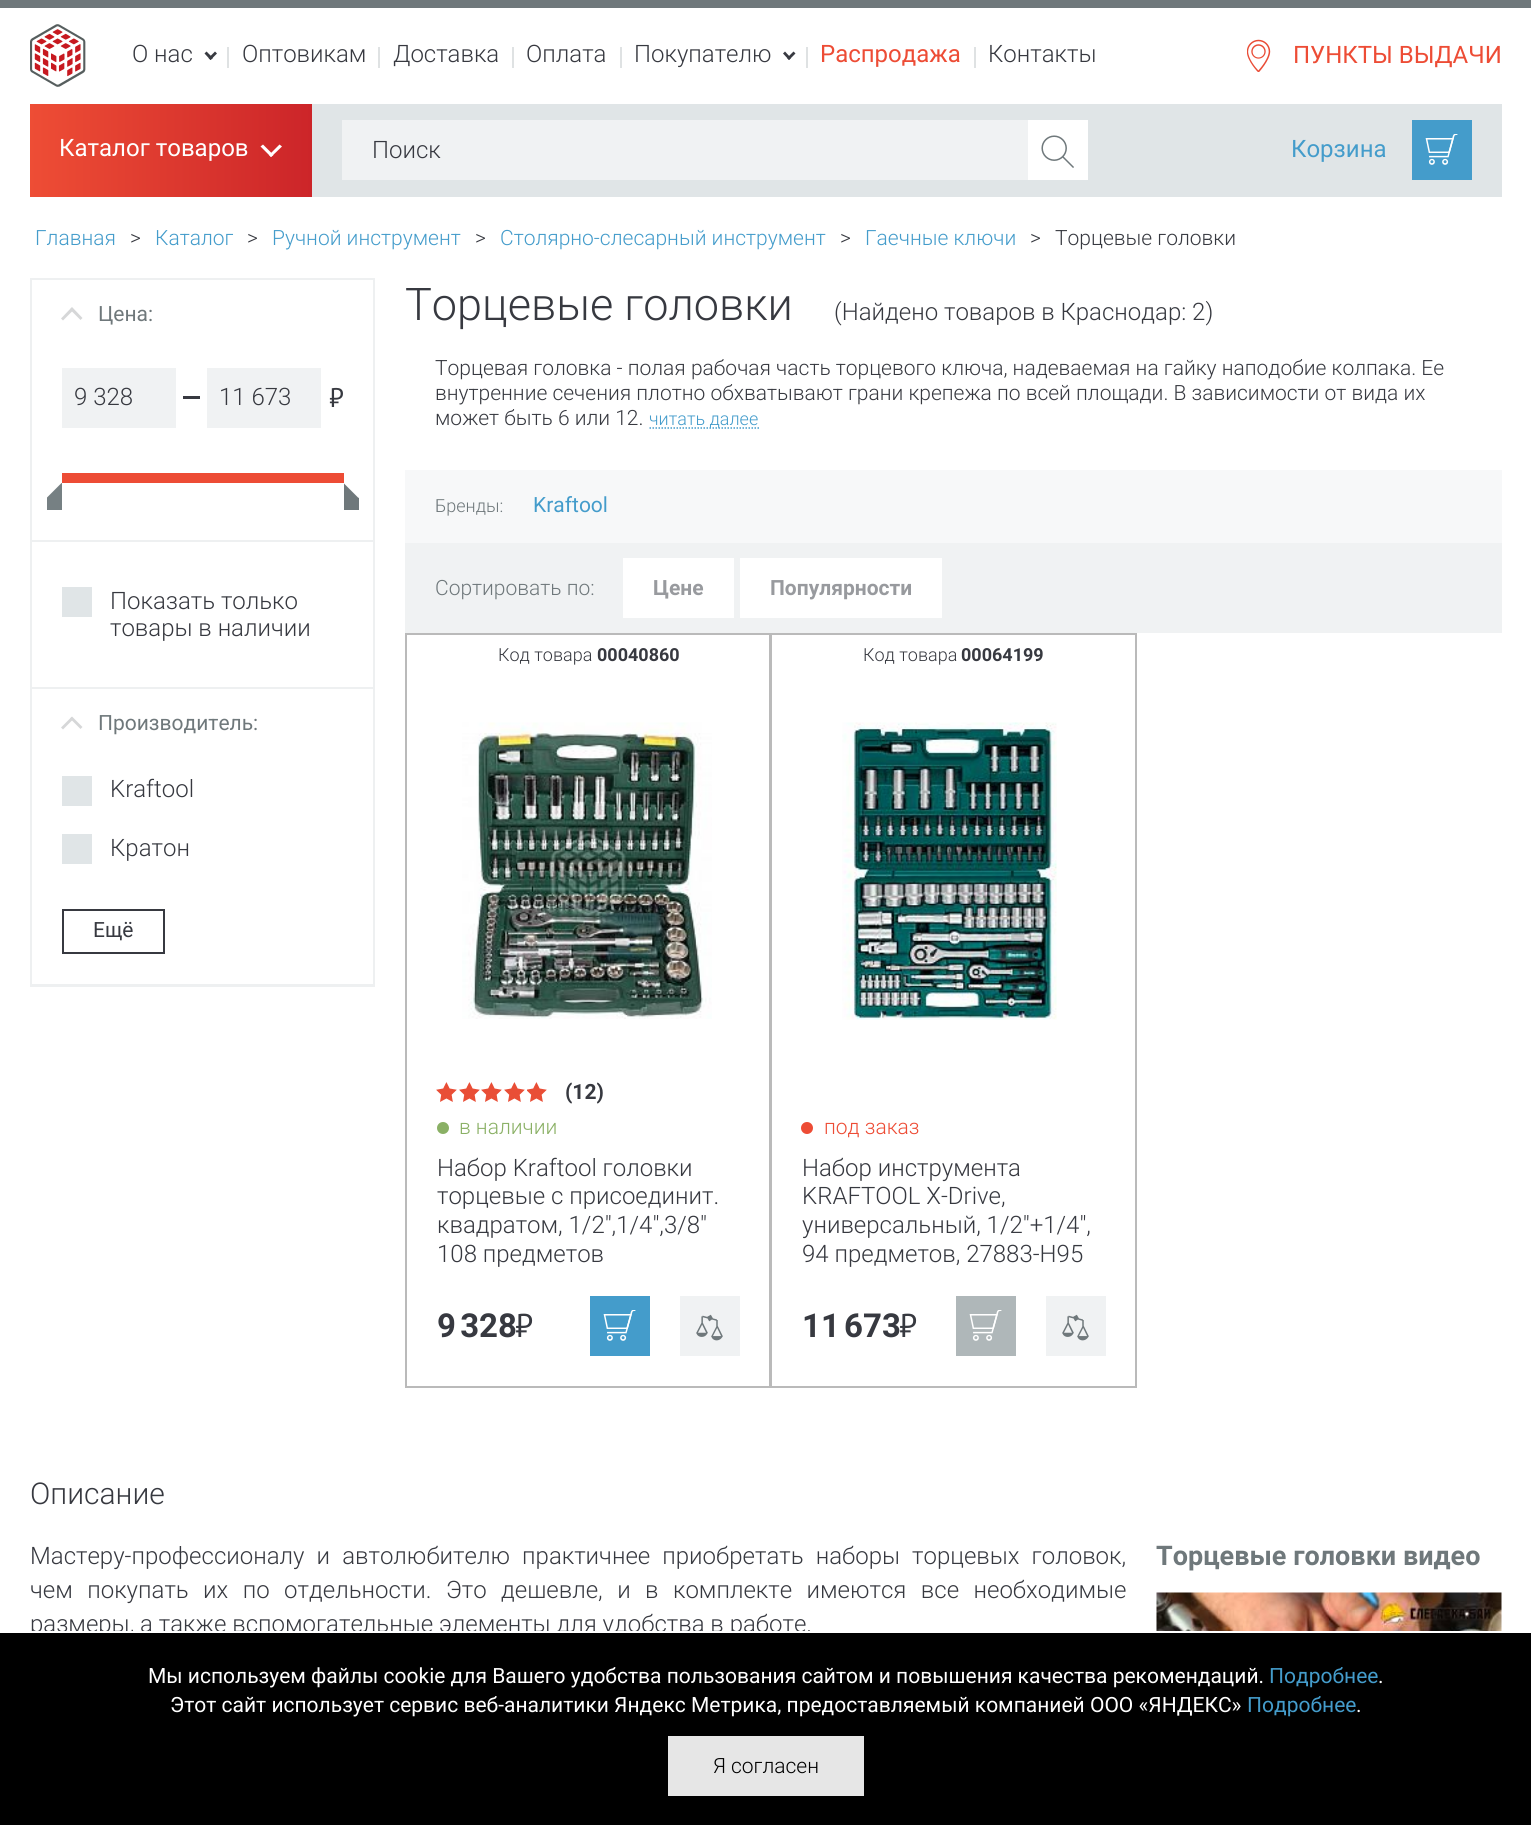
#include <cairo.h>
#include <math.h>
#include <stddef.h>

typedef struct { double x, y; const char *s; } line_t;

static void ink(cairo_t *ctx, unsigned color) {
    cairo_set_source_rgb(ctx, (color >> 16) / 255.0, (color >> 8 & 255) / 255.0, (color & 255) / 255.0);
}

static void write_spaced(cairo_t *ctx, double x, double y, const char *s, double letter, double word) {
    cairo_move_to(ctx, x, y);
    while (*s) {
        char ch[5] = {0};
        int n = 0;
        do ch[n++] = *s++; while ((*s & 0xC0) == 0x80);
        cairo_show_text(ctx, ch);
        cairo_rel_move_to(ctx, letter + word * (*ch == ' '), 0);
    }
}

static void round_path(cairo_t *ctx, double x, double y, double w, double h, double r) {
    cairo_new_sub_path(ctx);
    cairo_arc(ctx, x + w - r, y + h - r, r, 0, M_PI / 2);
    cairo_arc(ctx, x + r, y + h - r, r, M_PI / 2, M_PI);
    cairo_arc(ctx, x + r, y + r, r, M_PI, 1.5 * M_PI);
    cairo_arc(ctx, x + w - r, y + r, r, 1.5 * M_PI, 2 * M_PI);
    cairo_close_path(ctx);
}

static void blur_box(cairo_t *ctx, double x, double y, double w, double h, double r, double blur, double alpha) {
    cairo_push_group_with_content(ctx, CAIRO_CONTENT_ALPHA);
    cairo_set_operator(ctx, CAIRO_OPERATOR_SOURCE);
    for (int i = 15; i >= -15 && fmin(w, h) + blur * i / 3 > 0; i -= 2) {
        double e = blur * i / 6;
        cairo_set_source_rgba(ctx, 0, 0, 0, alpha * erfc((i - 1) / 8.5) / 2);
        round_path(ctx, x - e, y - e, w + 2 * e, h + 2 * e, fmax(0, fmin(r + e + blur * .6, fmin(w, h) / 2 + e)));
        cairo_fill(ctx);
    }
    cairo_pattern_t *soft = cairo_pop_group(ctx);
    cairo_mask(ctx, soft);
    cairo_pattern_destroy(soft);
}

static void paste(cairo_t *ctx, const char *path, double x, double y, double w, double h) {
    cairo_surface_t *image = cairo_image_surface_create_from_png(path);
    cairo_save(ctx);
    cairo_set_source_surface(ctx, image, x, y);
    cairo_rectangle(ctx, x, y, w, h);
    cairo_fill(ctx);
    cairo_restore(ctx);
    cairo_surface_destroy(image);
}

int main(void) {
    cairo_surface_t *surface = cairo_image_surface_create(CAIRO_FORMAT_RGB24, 1531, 1825);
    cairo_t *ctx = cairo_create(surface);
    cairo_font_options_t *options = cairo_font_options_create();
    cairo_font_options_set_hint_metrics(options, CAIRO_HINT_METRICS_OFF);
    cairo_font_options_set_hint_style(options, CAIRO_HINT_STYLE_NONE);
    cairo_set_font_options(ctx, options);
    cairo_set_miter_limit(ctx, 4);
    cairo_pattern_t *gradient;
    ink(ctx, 0xFFFFFF);
    cairo_paint(ctx);
    ink(ctx, 0x6F787B);
    cairo_rectangle(ctx, 0, 0, 1531, 8);
    cairo_fill(ctx);
    paste(ctx, "media/1.png", 30, 24, 56, 63);
    cairo_select_font_face(ctx, "Roboto Light", CAIRO_FONT_SLANT_NORMAL, CAIRO_FONT_WEIGHT_NORMAL);
    cairo_set_font_size(ctx, 24);
    ink(ctx, 0x373940);
    cairo_move_to(ctx, 132, 62);
    cairo_show_text(ctx, "О нас");
    ink(ctx, 0x383A41);
    cairo_new_path(ctx);
    cairo_move_to(ctx, 210.5, 60);
    cairo_line_to(ctx, 208.5, 58);
    cairo_line_to(ctx, 215, 51.5);
    cairo_line_to(ctx, 217, 53.5);
    cairo_close_path(ctx);
    cairo_fill(ctx);
    cairo_new_path(ctx);
    cairo_move_to(ctx, 210.5, 60);
    cairo_line_to(ctx, 204.5, 53.5);
    cairo_line_to(ctx, 206.5, 51.5);
    cairo_line_to(ctx, 213, 58);
    cairo_close_path(ctx);
    cairo_fill(ctx);
    ink(ctx, 0xDFE2E3);
    cairo_rectangle(ctx, 227, 47, 2, 21);
    cairo_fill(ctx);
    ink(ctx, 0x373940);
    cairo_move_to(ctx, 242, 62);
    cairo_show_text(ctx, "Оптовикам");
    ink(ctx, 0xDFE2E3);
    cairo_rectangle(ctx, 378, 47, 2, 21);
    cairo_fill(ctx);
    ink(ctx, 0x373940);
    cairo_move_to(ctx, 393, 62);
    cairo_show_text(ctx, "Доставка");
    ink(ctx, 0xDFE2E3);
    cairo_rectangle(ctx, 512, 47, 2, 21);
    cairo_fill(ctx);
    ink(ctx, 0x373940);
    cairo_move_to(ctx, 526, 62);
    cairo_show_text(ctx, "Оплата");
    ink(ctx, 0xDFE2E3);
    cairo_rectangle(ctx, 620, 47, 2, 21);
    cairo_fill(ctx);
    ink(ctx, 0x373940);
    cairo_move_to(ctx, 634, 62);
    cairo_show_text(ctx, "Покупателю");
    ink(ctx, 0x383A41);
    cairo_new_path(ctx);
    cairo_move_to(ctx, 789, 60);
    cairo_line_to(ctx, 787, 58);
    cairo_line_to(ctx, 793.5, 51.5);
    cairo_line_to(ctx, 795.5, 53.5);
    cairo_close_path(ctx);
    cairo_fill(ctx);
    cairo_new_path(ctx);
    cairo_move_to(ctx, 789, 60);
    cairo_line_to(ctx, 783, 53.5);
    cairo_line_to(ctx, 785, 51.5);
    cairo_line_to(ctx, 791, 58);
    cairo_close_path(ctx);
    cairo_fill(ctx);
    ink(ctx, 0xDFE2E3);
    cairo_rectangle(ctx, 806, 47, 2, 21);
    cairo_fill(ctx);
    cairo_select_font_face(ctx, "Roboto", CAIRO_FONT_SLANT_NORMAL, CAIRO_FONT_WEIGHT_NORMAL);
    ink(ctx, 0xED4C35);
    cairo_move_to(ctx, 820, 62);
    cairo_show_text(ctx, "Распродажа");
    ink(ctx, 0xDFE2E3);
    cairo_rectangle(ctx, 974, 47, 2, 21);
    cairo_fill(ctx);
    cairo_select_font_face(ctx, "Roboto Light", CAIRO_FONT_SLANT_NORMAL, CAIRO_FONT_WEIGHT_NORMAL);
    ink(ctx, 0x373940);
    cairo_move_to(ctx, 988, 62);
    cairo_show_text(ctx, "Контакты");
    paste(ctx, "media/2.png", 1247, 39, 24, 33);
    cairo_select_font_face(ctx, "Roboto", CAIRO_FONT_SLANT_NORMAL, CAIRO_FONT_WEIGHT_NORMAL);
    ink(ctx, 0xED4C35);
    cairo_move_to(ctx, 1293, 63);
    cairo_show_text(ctx, "ПУНКТЫ ВЫДАЧИ");
    ink(ctx, 0xE0E5E7);
    cairo_rectangle(ctx, 312, 104, 1190, 93);
    cairo_fill(ctx);
    gradient = cairo_pattern_create_linear(312, 150, 30, 150);
    cairo_pattern_add_color_stop_rgba(gradient, 0, 0.8, 0.145, 0.161, 1);
    cairo_pattern_add_color_stop_rgba(gradient, 1, 0.933, 0.302, 0.208, 1);
    cairo_set_source(ctx, gradient);
    cairo_pattern_destroy(gradient);
    cairo_rectangle(ctx, 30, 104, 282, 93);
    cairo_fill(ctx);
    ink(ctx, 0xFFFFFF);
    cairo_move_to(ctx, 59, 156);
    cairo_show_text(ctx, "Каталог товаров");
    cairo_new_path(ctx);
    cairo_move_to(ctx, 279.5, 144.5);
    cairo_line_to(ctx, 282, 146.5);
    cairo_line_to(ctx, 271, 157);
    cairo_line_to(ctx, 269, 155);
    cairo_close_path(ctx);
    cairo_fill(ctx);
    cairo_new_path(ctx);
    cairo_move_to(ctx, 263, 144.5);
    cairo_line_to(ctx, 273.5, 155);
    cairo_line_to(ctx, 271, 157);
    cairo_line_to(ctx, 260.5, 146.5);
    cairo_close_path(ctx);
    cairo_fill(ctx);
    ink(ctx, 0xF0F2F3);
    cairo_rectangle(ctx, 342, 120, 686, 60);
    cairo_fill(ctx);
    cairo_select_font_face(ctx, "Roboto Light", CAIRO_FONT_SLANT_NORMAL, CAIRO_FONT_WEIGHT_NORMAL);
    ink(ctx, 0x373940);
    cairo_move_to(ctx, 372, 158);
    cairo_show_text(ctx, "Поиск");
    ink(ctx, 0xFFFFFF);
    cairo_rectangle(ctx, 1028, 120, 60, 60);
    cairo_fill(ctx);
    paste(ctx, "media/3.png", 1041, 135, 33, 33);
    cairo_select_font_face(ctx, "Roboto", CAIRO_FONT_SLANT_NORMAL, CAIRO_FONT_WEIGHT_NORMAL);
    ink(ctx, 0x449CCB);
    cairo_move_to(ctx, 1291, 157);
    cairo_show_text(ctx, "Корзина");
    cairo_rectangle(ctx, 1412, 120, 60, 60);
    cairo_fill(ctx);
    paste(ctx, "media/4.png", 1425, 134, 33, 31);
    cairo_select_font_face(ctx, "Roboto Light", CAIRO_FONT_SLANT_NORMAL, CAIRO_FONT_WEIGHT_NORMAL);
    cairo_set_font_size(ctx, 21);
    cairo_move_to(ctx, 35, 245);
    cairo_show_text(ctx, "Главная");
    ink(ctx, 0x373940);
    cairo_move_to(ctx, 130, 245);
    cairo_show_text(ctx, ">");
    ink(ctx, 0x449CCB);
    cairo_move_to(ctx, 155, 245);
    cairo_show_text(ctx, "Каталог");
    ink(ctx, 0x373940);
    cairo_move_to(ctx, 247, 245);
    cairo_show_text(ctx, ">");
    ink(ctx, 0x449CCB);
    cairo_move_to(ctx, 272, 245);
    cairo_show_text(ctx, "Ручной инструмент");
    ink(ctx, 0x373940);
    cairo_move_to(ctx, 475, 245);
    cairo_show_text(ctx, ">");
    ink(ctx, 0x449CCB);
    cairo_move_to(ctx, 500, 245);
    cairo_show_text(ctx, "Столярно-слесарный инструмент");
    ink(ctx, 0x373940);
    cairo_move_to(ctx, 840, 245);
    cairo_show_text(ctx, ">");
    ink(ctx, 0x449CCB);
    cairo_move_to(ctx, 865, 245);
    cairo_show_text(ctx, "Гаечные ключи");
    ink(ctx, 0x373940);
    cairo_move_to(ctx, 1030, 245);
    cairo_show_text(ctx, ">");
    cairo_move_to(ctx, 1055, 245);
    cairo_show_text(ctx, "Торцевые головки");
    cairo_rectangle(ctx, 31, 279, 343, 707);
    ink(ctx, 0xEEF0F1);
    cairo_stroke(ctx);
    ink(ctx, 0xD6D7D8);
    cairo_new_path(ctx);
    cairo_move_to(ctx, 63, 320.5);
    cairo_line_to(ctx, 61, 318.5);
    cairo_line_to(ctx, 71.5, 307.5);
    cairo_line_to(ctx, 73.5, 310);
    cairo_close_path(ctx);
    cairo_fill(ctx);
    cairo_new_path(ctx);
    cairo_move_to(ctx, 80.5, 320);
    cairo_line_to(ctx, 70, 309.5);
    cairo_line_to(ctx, 72, 307);
    cairo_line_to(ctx, 82.5, 318);
    cairo_close_path(ctx);
    cairo_fill(ctx);
    cairo_select_font_face(ctx, "Roboto", CAIRO_FONT_SLANT_NORMAL, CAIRO_FONT_WEIGHT_NORMAL);
    ink(ctx, 0x6F787B);
    cairo_move_to(ctx, 98, 321);
    cairo_show_text(ctx, "Цена:");
    ink(ctx, 0xF0F2F3);
    cairo_rectangle(ctx, 62, 368, 114, 60);
    cairo_fill(ctx);
    cairo_select_font_face(ctx, "Roboto Light", CAIRO_FONT_SLANT_NORMAL, CAIRO_FONT_WEIGHT_NORMAL);
    cairo_set_font_size(ctx, 24);
    ink(ctx, 0x373940);
    cairo_move_to(ctx, 74, 405);
    cairo_show_text(ctx, "9 328");
    cairo_rectangle(ctx, 183, 396, 17, 3);
    cairo_fill(ctx);
    ink(ctx, 0xF0F2F3);
    cairo_rectangle(ctx, 207, 368, 114, 60);
    cairo_fill(ctx);
    ink(ctx, 0x373940);
    cairo_move_to(ctx, 219, 405);
    cairo_show_text(ctx, "11 673");
    cairo_select_font_face(ctx, "PT Sans", CAIRO_FONT_SLANT_NORMAL, CAIRO_FONT_WEIGHT_NORMAL);
    cairo_set_font_size(ctx, 27);
    cairo_move_to(ctx, 329, 407);
    cairo_show_text(ctx, "₽");
    ink(ctx, 0xED4C35);
    cairo_rectangle(ctx, 62, 473, 282, 10);
    cairo_fill(ctx);
    ink(ctx, 0x768083);
    cairo_rectangle(ctx, 47, 483, 15, 27);
    cairo_fill(ctx);
    cairo_save(ctx);
    cairo_rectangle(ctx, 47, 483, 15, 27);
    cairo_clip(ctx);
    ink(ctx, 0xFFFFFF);
    cairo_new_path(ctx);
    cairo_move_to(ctx, 31.5, 483);
    cairo_line_to(ctx, 61.5, 483);
    cairo_line_to(ctx, 46.5, 498);
    cairo_close_path(ctx);
    cairo_fill(ctx);
    cairo_restore(ctx);
    ink(ctx, 0x6F787B);
    cairo_rectangle(ctx, 344, 483, 15, 27);
    cairo_fill(ctx);
    cairo_save(ctx);
    cairo_rectangle(ctx, 344, 483, 15, 27);
    cairo_clip(ctx);
    ink(ctx, 0xFFFFFF);
    cairo_new_path(ctx);
    cairo_move_to(ctx, 343.5, 483);
    cairo_line_to(ctx, 373.5, 483);
    cairo_line_to(ctx, 358.5, 498);
    cairo_close_path(ctx);
    cairo_fill(ctx);
    cairo_restore(ctx);
    ink(ctx, 0xEEF0F1);
    cairo_rectangle(ctx, 32, 540, 342, 2);
    cairo_fill(ctx);
    ink(ctx, 0xE0E5E7);
    cairo_rectangle(ctx, 62, 587, 30, 30);
    cairo_fill(ctx);
    cairo_select_font_face(ctx, "Roboto Light", CAIRO_FONT_SLANT_NORMAL, CAIRO_FONT_WEIGHT_NORMAL);
    cairo_set_font_size(ctx, 24);
    ink(ctx, 0x373940);
    cairo_move_to(ctx, 110, 609);
    cairo_show_text(ctx, "Показать только");
    cairo_move_to(ctx, 110, 636);
    cairo_show_text(ctx, "товары в наличии");
    ink(ctx, 0xEEF0F1);
    cairo_rectangle(ctx, 32, 687, 342, 2);
    cairo_fill(ctx);
    ink(ctx, 0xD6D7D8);
    cairo_new_path(ctx);
    cairo_move_to(ctx, 63, 729.5);
    cairo_line_to(ctx, 61, 727.5);
    cairo_line_to(ctx, 71.5, 717);
    cairo_line_to(ctx, 73.5, 719);
    cairo_close_path(ctx);
    cairo_fill(ctx);
    cairo_new_path(ctx);
    cairo_move_to(ctx, 80.5, 729);
    cairo_line_to(ctx, 70, 718.5);
    cairo_line_to(ctx, 72, 716.5);
    cairo_line_to(ctx, 82.5, 727);
    cairo_close_path(ctx);
    cairo_fill(ctx);
    cairo_select_font_face(ctx, "Roboto", CAIRO_FONT_SLANT_NORMAL, CAIRO_FONT_WEIGHT_NORMAL);
    cairo_set_font_size(ctx, 21);
    ink(ctx, 0x6F787B);
    cairo_move_to(ctx, 98, 730);
    cairo_show_text(ctx, "Производитель:");
    ink(ctx, 0xE0E5E7);
    cairo_rectangle(ctx, 62, 776, 30, 30);
    cairo_fill(ctx);
    cairo_select_font_face(ctx, "Roboto Light", CAIRO_FONT_SLANT_NORMAL, CAIRO_FONT_WEIGHT_NORMAL);
    cairo_set_font_size(ctx, 24);
    ink(ctx, 0x373940);
    cairo_move_to(ctx, 110, 797);
    cairo_show_text(ctx, "Kraftool");
    ink(ctx, 0xE0E5E7);
    cairo_rectangle(ctx, 62, 834, 30, 30);
    cairo_fill(ctx);
    ink(ctx, 0x373940);
    cairo_move_to(ctx, 110, 856);
    cairo_show_text(ctx, "Кратон");
    cairo_rectangle(ctx, 63, 910, 101, 43);
    cairo_stroke(ctx);
    cairo_select_font_face(ctx, "Roboto", CAIRO_FONT_SLANT_NORMAL, CAIRO_FONT_WEIGHT_NORMAL);
    cairo_set_font_size(ctx, 21);
    cairo_move_to(ctx, 93, 937);
    cairo_show_text(ctx, "Ещё");
    ink(ctx, 0xEEF0F1);
    cairo_rectangle(ctx, 32, 984, 342, 1);
    cairo_fill(ctx);
    cairo_select_font_face(ctx, "Roboto Light", CAIRO_FONT_SLANT_NORMAL, CAIRO_FONT_WEIGHT_NORMAL);
    cairo_set_font_size(ctx, 45);
    ink(ctx, 0x373940);
    cairo_move_to(ctx, 405, 320);
    cairo_show_text(ctx, "Торцевые головки");
    cairo_set_font_size(ctx, 24);
    cairo_move_to(ctx, 834, 320);
    cairo_show_text(ctx, "(Найдено товаров в Краснодар: 2)");
    cairo_set_font_size(ctx, 21);
    {
        static const line_t items[] = {
            {435, 375, "Торцевая головка - полая рабочая часть торцевого ключа, надеваемая на гайку наподобие колпака. Ее"},
            {435, 400, "внутренние сечения плотно обхватывают грани крепежа по всей площади. В зависимости от вида их"},
            {435, 425, "может быть 6 или 12."},
        };
        for (size_t i = 0; i < sizeof items / sizeof *items; i++) {
            cairo_move_to(ctx, items[i].x, items[i].y);
            cairo_show_text(ctx, items[i].s);
        }
    }
    cairo_new_path(ctx);
    cairo_move_to(ctx, 649.5, 428);
    cairo_line_to(ctx, 759, 428);
    ink(ctx, 0x449CCB);
    cairo_set_line_width(ctx, 1.5);
    cairo_set_dash(ctx, (double[]){1.5, 1.5}, 2, 0);
    cairo_stroke(ctx);
    cairo_set_font_size(ctx, 18);
    cairo_move_to(ctx, 649, 425);
    cairo_show_text(ctx, "читать далее");
    ink(ctx, 0xF7F8F9);
    cairo_rectangle(ctx, 405, 470, 1097, 73);
    cairo_fill(ctx);
    ink(ctx, 0x6F787B);
    cairo_move_to(ctx, 435, 512);
    cairo_show_text(ctx, "Бренды:");
    cairo_select_font_face(ctx, "Roboto", CAIRO_FONT_SLANT_NORMAL, CAIRO_FONT_WEIGHT_NORMAL);
    cairo_set_font_size(ctx, 21);
    ink(ctx, 0x449CCB);
    cairo_move_to(ctx, 533, 512);
    cairo_show_text(ctx, "Kraftool");
    ink(ctx, 0xF0F2F3);
    cairo_rectangle(ctx, 405, 543, 1097, 90);
    cairo_fill(ctx);
    cairo_select_font_face(ctx, "Roboto Light", CAIRO_FONT_SLANT_NORMAL, CAIRO_FONT_WEIGHT_NORMAL);
    ink(ctx, 0x6F787B);
    cairo_move_to(ctx, 435, 595);
    cairo_show_text(ctx, "Сортировать по:");
    ink(ctx, 0xFFFFFF);
    cairo_rectangle(ctx, 623, 558, 111, 60);
    cairo_fill(ctx);
    cairo_select_font_face(ctx, "Roboto", CAIRO_FONT_SLANT_NORMAL, CAIRO_FONT_WEIGHT_BOLD);
    ink(ctx, 0x989A9E);
    cairo_move_to(ctx, 653, 595);
    cairo_show_text(ctx, "Цене");
    ink(ctx, 0xFFFFFF);
    cairo_rectangle(ctx, 740, 558, 202, 60);
    cairo_fill(ctx);
    ink(ctx, 0x989A9E);
    cairo_move_to(ctx, 770, 595);
    cairo_show_text(ctx, "Популярности");
    cairo_rectangle(ctx, 406, 634, 364, 753);
    ink(ctx, 0xBABABA);
    cairo_set_line_width(ctx, 2);
    cairo_set_dash(ctx, NULL, 0, 0);
    cairo_stroke(ctx);
    cairo_select_font_face(ctx, "Roboto Light", CAIRO_FONT_SLANT_NORMAL, CAIRO_FONT_WEIGHT_NORMAL);
    cairo_set_font_size(ctx, 18);
    ink(ctx, 0x373940);
    cairo_move_to(ctx, 498, 661);
    cairo_show_text(ctx, "Код товара");
    cairo_select_font_face(ctx, "Roboto", CAIRO_FONT_SLANT_NORMAL, CAIRO_FONT_WEIGHT_BOLD);
    cairo_move_to(ctx, 597, 661);
    cairo_show_text(ctx, "00040860");
    paste(ctx, "media/5.png", 462, 722, 250, 297);
    paste(ctx, "media/6.png", 436, 1082, 101, 9);
    ink(ctx, 0xFFFFFF);
    cairo_rectangle(ctx, 437, 1083, 100, 8);
    cairo_fill(ctx);
    paste(ctx, "media/7.png", 436, 1082, 111, 20);
    cairo_set_font_size(ctx, 21);
    ink(ctx, 0x373940);
    cairo_move_to(ctx, 565, 1099);
    cairo_show_text(ctx, "(12)");
    ink(ctx, 0x8AB065);
    cairo_new_path(ctx);
    cairo_arc(ctx, 443, 1128, 6, 0, 2 * M_PI);
    cairo_fill(ctx);
    cairo_select_font_face(ctx, "Roboto Light", CAIRO_FONT_SLANT_NORMAL, CAIRO_FONT_WEIGHT_NORMAL);
    cairo_move_to(ctx, 459, 1134);
    cairo_show_text(ctx, "в наличии");
    cairo_set_font_size(ctx, 24);
    ink(ctx, 0x373940);
    {
        static const line_t items[] = {
            {437, 1176, "Набор Kraftool головки"},
            {437, 1204, "торцевые с присоединит."},
            {437, 1233, "квадратом, 1/2\",1/4\",3/8\""},
            {437, 1262, "108 предметов"},
        };
        for (size_t i = 0; i < sizeof items / sizeof *items; i++) {
            cairo_move_to(ctx, items[i].x, items[i].y);
            cairo_show_text(ctx, items[i].s);
        }
    }
    cairo_select_font_face(ctx, "Roboto", CAIRO_FONT_SLANT_NORMAL, CAIRO_FONT_WEIGHT_BOLD);
    cairo_set_font_size(ctx, 33);
    write_spaced(ctx, 437, 1337, "9 328", 0, -4);
    cairo_select_font_face(ctx, "PT Sans", CAIRO_FONT_SLANT_NORMAL, CAIRO_FONT_WEIGHT_NORMAL);
    cairo_move_to(ctx, 515, 1337);
    cairo_show_text(ctx, "₽");
    ink(ctx, 0x449CCB);
    cairo_rectangle(ctx, 590, 1296, 60, 60);
    cairo_fill(ctx);
    paste(ctx, "media/4.png", 603, 1310, 33, 31);
    ink(ctx, 0xF0F2F3);
    cairo_rectangle(ctx, 680, 1296, 60, 60);
    cairo_fill(ctx);
    paste(ctx, "media/8.png", 696, 1314, 27, 27);
    cairo_rectangle(ctx, 771, 634, 365, 753);
    ink(ctx, 0xBABABA);
    cairo_stroke(ctx);
    cairo_select_font_face(ctx, "Roboto Light", CAIRO_FONT_SLANT_NORMAL, CAIRO_FONT_WEIGHT_NORMAL);
    cairo_set_font_size(ctx, 18);
    ink(ctx, 0x373940);
    cairo_move_to(ctx, 863, 661);
    cairo_show_text(ctx, "Код товара");
    cairo_select_font_face(ctx, "Roboto", CAIRO_FONT_SLANT_NORMAL, CAIRO_FONT_WEIGHT_BOLD);
    cairo_move_to(ctx, 961, 661);
    cairo_show_text(ctx, "00064199");
    paste(ctx, "media/9.png", 842, 722, 215, 298);
    ink(ctx, 0xED4C35);
    cairo_arc(ctx, 807, 1128, 6, 0, 2 * M_PI);
    cairo_fill(ctx);
    cairo_select_font_face(ctx, "Roboto Light", CAIRO_FONT_SLANT_NORMAL, CAIRO_FONT_WEIGHT_NORMAL);
    cairo_set_font_size(ctx, 21);
    cairo_move_to(ctx, 824, 1134);
    cairo_show_text(ctx, "под заказ");
    cairo_set_font_size(ctx, 24);
    ink(ctx, 0x373940);
    {
        static const line_t items[] = {
            {802, 1176, "Набор инструмента"},
            {802, 1204, "KRAFTOOL X-Drive,"},
            {802, 1233, "универсальный, 1/2\"+1/4\","},
            {802, 1262, "94 предметов, 27883-H95"},
        };
        for (size_t i = 0; i < sizeof items / sizeof *items; i++) {
            cairo_move_to(ctx, items[i].x, items[i].y);
            cairo_show_text(ctx, items[i].s);
        }
    }
    cairo_select_font_face(ctx, "Roboto", CAIRO_FONT_SLANT_NORMAL, CAIRO_FONT_WEIGHT_BOLD);
    cairo_set_font_size(ctx, 33);
    write_spaced(ctx, 802, 1337, "11 673", 0, -4);
    cairo_select_font_face(ctx, "PT Sans", CAIRO_FONT_SLANT_NORMAL, CAIRO_FONT_WEIGHT_NORMAL);
    cairo_move_to(ctx, 899, 1337);
    cairo_show_text(ctx, "₽");
    ink(ctx, 0xAFB7B9);
    cairo_rectangle(ctx, 956, 1296, 60, 60);
    cairo_fill(ctx);
    paste(ctx, "media/10.png", 969, 1310, 33, 31);
    ink(ctx, 0xF0F2F3);
    cairo_rectangle(ctx, 1046, 1296, 60, 60);
    cairo_fill(ctx);
    paste(ctx, "media/8.png", 1062, 1314, 27, 27);
    cairo_select_font_face(ctx, "Roboto Light", CAIRO_FONT_SLANT_NORMAL, CAIRO_FONT_WEIGHT_NORMAL);
    cairo_set_font_size(ctx, 30);
    ink(ctx, 0x373940);
    cairo_move_to(ctx, 30, 1504);
    cairo_show_text(ctx, "Описание");
    cairo_set_font_size(ctx, 24);
    write_spaced(ctx, 30, 1564, "Мастеру-профессионалу и автолюбителю практичнее приобретать наборы торцевых головок,", 0, 6.25);
    write_spaced(ctx, 30, 1598, "чем покупать их по отдельности. Это дешевле, и в комплекте имеются все необходимые", 0, 8.6);
    cairo_move_to(ctx, 30, 1632);
    cairo_show_text(ctx, "размеры, а также вспомогательные элементы для удобства в работе.");
    cairo_select_font_face(ctx, "Roboto", CAIRO_FONT_SLANT_NORMAL, CAIRO_FONT_WEIGHT_BOLD);
    cairo_set_font_size(ctx, 27);
    ink(ctx, 0x6F787B);
    cairo_move_to(ctx, 1156, 1565);
    cairo_show_text(ctx, "Торцевые головки видео");
    paste(ctx, "media/11.png", 1156, 1592, 346, 39);
    ink(ctx, 0x171717);
    blur_box(ctx, 1277, 1638, 105, 105, 52.5, 15, 0.2);
    ink(ctx, 0x000000);
    cairo_rectangle(ctx, 0, 1633, 1531, 192);
    cairo_fill(ctx);
    ink(ctx, 0xFFFFFF);
    cairo_rectangle(ctx, 31, 1631, 1345, 2);
    cairo_fill(ctx);
    cairo_select_font_face(ctx, "Roboto", CAIRO_FONT_SLANT_NORMAL, CAIRO_FONT_WEIGHT_NORMAL);
    cairo_set_font_size(ctx, 21);
    cairo_move_to(ctx, 148, 1683);
    cairo_show_text(ctx, "Мы используем файлы cookie для Вашего удобства пользования сайтом и повышения качества рекомендаций.");
    ink(ctx, 0x449CCB);
    cairo_move_to(ctx, 1269, 1683);
    cairo_show_text(ctx, "Подробнее");
    ink(ctx, 0xFFFFFF);
    cairo_move_to(ctx, 1378, 1683);
    cairo_show_text(ctx, ".");
    cairo_move_to(ctx, 170, 1712);
    cairo_show_text(ctx, "Этот сайт использует сервис веб-аналитики Яндекс Метрика, предоставляемый компанией ООО «ЯНДЕКС»");
    ink(ctx, 0x449CCB);
    cairo_move_to(ctx, 1247, 1712);
    cairo_show_text(ctx, "Подробнее");
    ink(ctx, 0xFFFFFF);
    cairo_move_to(ctx, 1356, 1712);
    cairo_show_text(ctx, ".");
    ink(ctx, 0xE6E6E6);
    cairo_rectangle(ctx, 668, 1736, 196, 60);
    cairo_fill(ctx);
    cairo_select_font_face(ctx, "Roboto Light", CAIRO_FONT_SLANT_NORMAL, CAIRO_FONT_WEIGHT_NORMAL);
    ink(ctx, 0x000000);
    cairo_move_to(ctx, 713, 1773);
    cairo_show_text(ctx, "Я согласен");
    cairo_surface_write_to_png(surface, "image.png");
    cairo_font_options_destroy(options);
    cairo_destroy(ctx);
    cairo_surface_destroy(surface);
    return 0;
}
